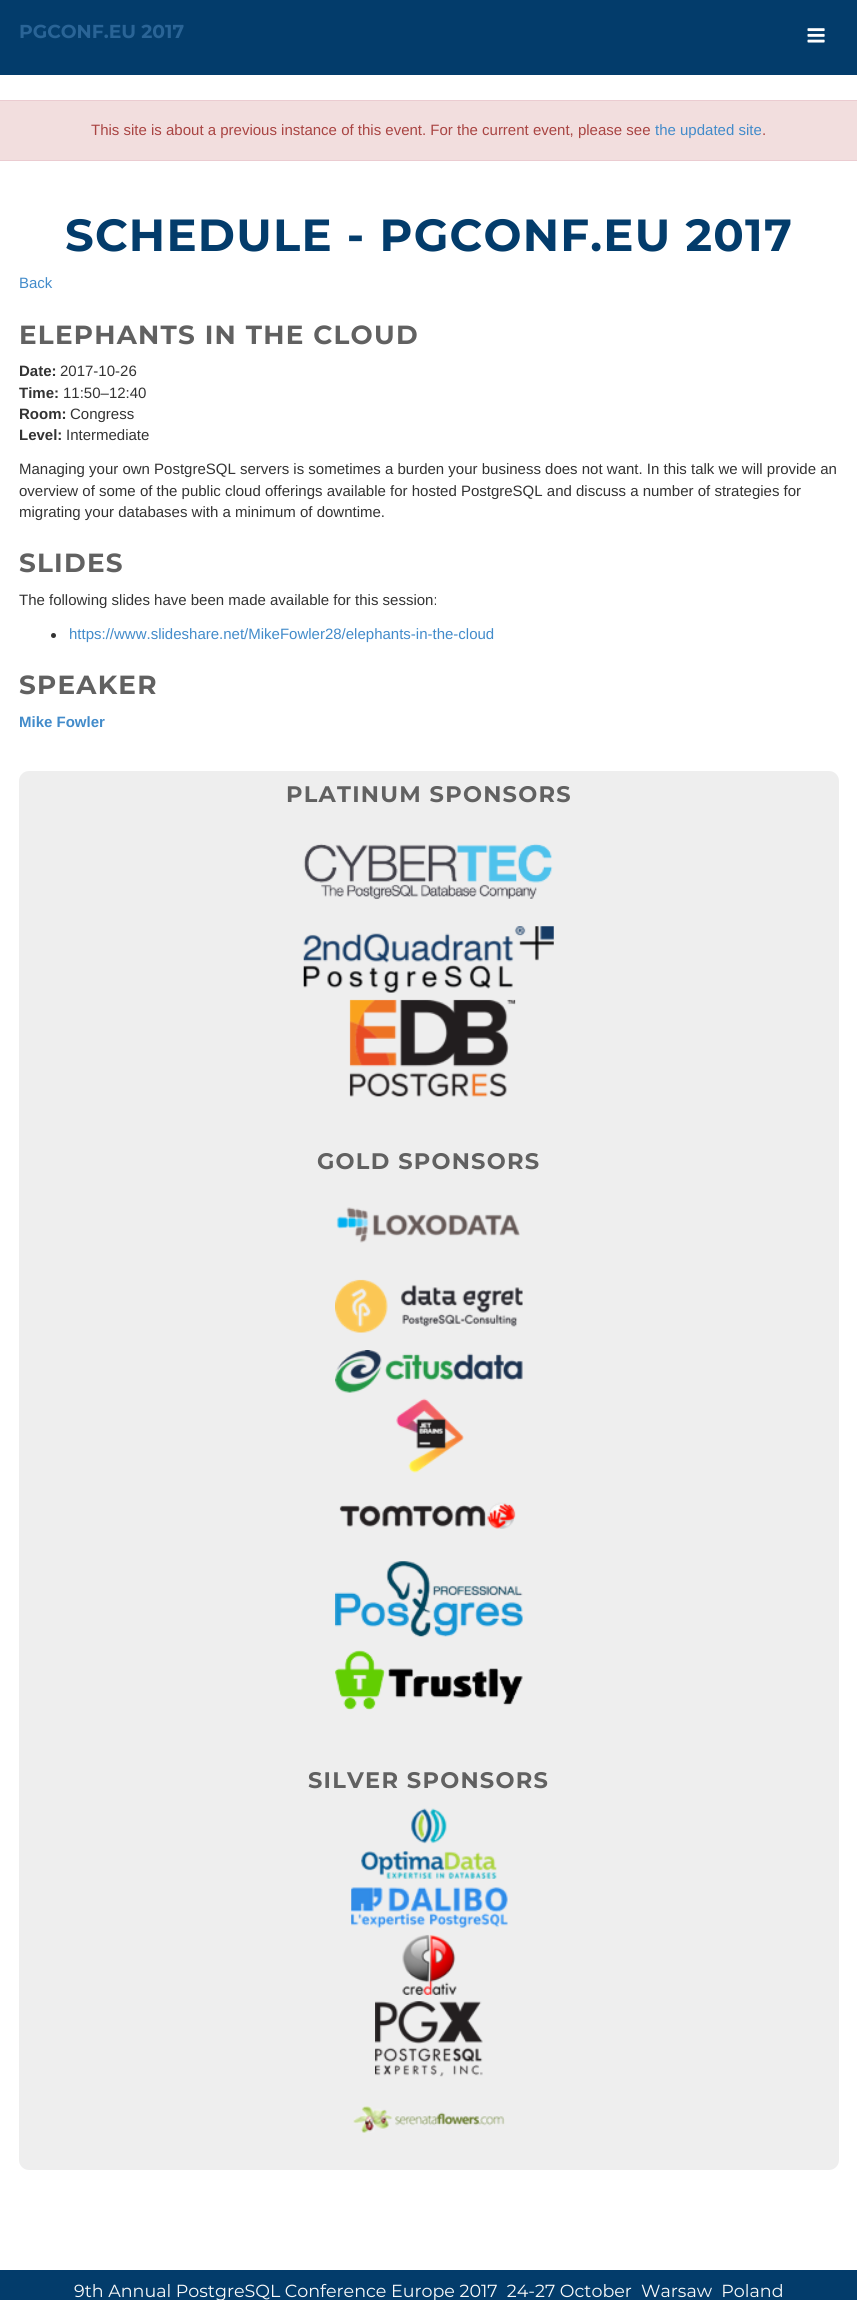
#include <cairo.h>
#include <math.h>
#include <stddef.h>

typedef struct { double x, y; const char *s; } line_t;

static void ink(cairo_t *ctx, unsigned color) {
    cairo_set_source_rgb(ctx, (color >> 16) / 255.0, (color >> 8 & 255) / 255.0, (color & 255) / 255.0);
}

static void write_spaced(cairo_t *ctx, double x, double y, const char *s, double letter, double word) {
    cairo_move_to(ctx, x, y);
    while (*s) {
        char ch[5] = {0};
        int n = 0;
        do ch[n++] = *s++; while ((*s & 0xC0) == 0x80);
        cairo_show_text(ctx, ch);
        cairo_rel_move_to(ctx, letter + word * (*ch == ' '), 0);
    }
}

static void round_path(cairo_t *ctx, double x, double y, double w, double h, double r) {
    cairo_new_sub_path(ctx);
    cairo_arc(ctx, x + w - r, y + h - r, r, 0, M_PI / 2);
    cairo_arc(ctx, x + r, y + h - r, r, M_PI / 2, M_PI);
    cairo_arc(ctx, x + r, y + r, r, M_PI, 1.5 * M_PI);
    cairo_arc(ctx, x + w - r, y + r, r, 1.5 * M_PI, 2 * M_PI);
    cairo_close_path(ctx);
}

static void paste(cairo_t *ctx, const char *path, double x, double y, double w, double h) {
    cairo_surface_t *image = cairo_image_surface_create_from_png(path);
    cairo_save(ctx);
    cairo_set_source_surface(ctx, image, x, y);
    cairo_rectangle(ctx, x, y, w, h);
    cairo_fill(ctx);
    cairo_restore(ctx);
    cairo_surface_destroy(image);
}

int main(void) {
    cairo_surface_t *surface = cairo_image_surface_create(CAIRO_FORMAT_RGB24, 857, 2300);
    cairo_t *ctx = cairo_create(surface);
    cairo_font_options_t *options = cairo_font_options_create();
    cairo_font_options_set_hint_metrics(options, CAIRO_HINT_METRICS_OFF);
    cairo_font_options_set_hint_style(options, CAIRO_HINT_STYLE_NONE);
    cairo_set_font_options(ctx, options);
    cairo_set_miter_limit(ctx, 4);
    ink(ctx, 0xFFFFFF);
    cairo_paint(ctx);
    ink(ctx, 0x033C6B);
    cairo_rectangle(ctx, 0, 0, 857, 75);
    cairo_fill(ctx);
    cairo_select_font_face(ctx, "Montserrat", CAIRO_FONT_SLANT_NORMAL, CAIRO_FONT_WEIGHT_BOLD);
    cairo_set_font_size(ctx, 18.75);
    ink(ctx, 0x2A6496);
    cairo_move_to(ctx, 19, 38);
    cairo_show_text(ctx, "PGCONF.EU 2017");
    paste(ctx, "media/1.png", 807, 28, 18, 15);
    ink(ctx, 0xF2DEDE);
    cairo_rectangle(ctx, -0.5, 100.5, 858, 60);
    cairo_fill_preserve(ctx);
    ink(ctx, 0xEBCCD1);
    cairo_set_line_width(ctx, 1);
    cairo_stroke(ctx);
    cairo_select_font_face(ctx, "Liberation Sans", CAIRO_FONT_SLANT_NORMAL, CAIRO_FONT_WEIGHT_NORMAL);
    cairo_set_font_size(ctx, 15);
    ink(ctx, 0xA94442);
    cairo_move_to(ctx, 91, 135);
    cairo_show_text(ctx, "This site is about a previous instance of this event. For the current event, please see");
    ink(ctx, 0x428BCA);
    cairo_move_to(ctx, 655, 135);
    cairo_show_text(ctx, "the updated site");
    ink(ctx, 0xA94442);
    cairo_move_to(ctx, 762, 135);
    cairo_show_text(ctx, ".");
    cairo_select_font_face(ctx, "Montserrat", CAIRO_FONT_SLANT_NORMAL, CAIRO_FONT_WEIGHT_BOLD);
    cairo_set_font_size(ctx, 45);
    ink(ctx, 0x033C6B);
    write_spaced(ctx, 65, 251, "SCHEDULE - PGCONF.EU 2017", 1.25, 0);
    cairo_select_font_face(ctx, "Liberation Sans", CAIRO_FONT_SLANT_NORMAL, CAIRO_FONT_WEIGHT_NORMAL);
    cairo_set_font_size(ctx, 15);
    ink(ctx, 0x428BCA);
    cairo_move_to(ctx, 19, 288);
    cairo_show_text(ctx, "Back");
    cairo_select_font_face(ctx, "Montserrat", CAIRO_FONT_SLANT_NORMAL, CAIRO_FONT_WEIGHT_BOLD);
    cairo_set_font_size(ctx, 26.25);
    ink(ctx, 0x616161);
    write_spaced(ctx, 19, 344, "ELEPHANTS IN THE CLOUD", 1.25, 0);
    cairo_select_font_face(ctx, "Liberation Sans", CAIRO_FONT_SLANT_NORMAL, CAIRO_FONT_WEIGHT_BOLD);
    cairo_set_font_size(ctx, 15);
    ink(ctx, 0x333333);
    cairo_move_to(ctx, 19, 376);
    cairo_show_text(ctx, "Date:");
    cairo_select_font_face(ctx, "Liberation Sans", CAIRO_FONT_SLANT_NORMAL, CAIRO_FONT_WEIGHT_NORMAL);
    cairo_move_to(ctx, 60, 376);
    cairo_show_text(ctx, "2017-10-26");
    cairo_select_font_face(ctx, "Liberation Sans", CAIRO_FONT_SLANT_NORMAL, CAIRO_FONT_WEIGHT_BOLD);
    cairo_move_to(ctx, 19, 398);
    cairo_show_text(ctx, "Time:");
    cairo_select_font_face(ctx, "Liberation Sans", CAIRO_FONT_SLANT_NORMAL, CAIRO_FONT_WEIGHT_NORMAL);
    cairo_move_to(ctx, 63, 398);
    cairo_show_text(ctx, "11:50–12:40");
    cairo_select_font_face(ctx, "Liberation Sans", CAIRO_FONT_SLANT_NORMAL, CAIRO_FONT_WEIGHT_BOLD);
    cairo_move_to(ctx, 19, 419);
    cairo_show_text(ctx, "Room:");
    cairo_select_font_face(ctx, "Liberation Sans", CAIRO_FONT_SLANT_NORMAL, CAIRO_FONT_WEIGHT_NORMAL);
    cairo_move_to(ctx, 70, 419);
    cairo_show_text(ctx, "Congress");
    cairo_select_font_face(ctx, "Liberation Sans", CAIRO_FONT_SLANT_NORMAL, CAIRO_FONT_WEIGHT_BOLD);
    cairo_move_to(ctx, 19, 440);
    cairo_show_text(ctx, "Level:");
    cairo_select_font_face(ctx, "Liberation Sans", CAIRO_FONT_SLANT_NORMAL, CAIRO_FONT_WEIGHT_NORMAL);
    {
        static const line_t items[] = {
            {66, 440, "Intermediate"},
            {19, 474, "Managing your own PostgreSQL servers is sometimes a burden your business does not want. In this talk we will provide an"},
            {19, 496, "overview of some of the public cloud offerings available for hosted PostgreSQL and discuss a number of strategies for"},
            {19, 517, "migrating your databases with a minimum of downtime."},
        };
        for (size_t i = 0; i < sizeof items / sizeof *items; i++) {
            cairo_move_to(ctx, items[i].x, items[i].y);
            cairo_show_text(ctx, items[i].s);
        }
    }
    cairo_select_font_face(ctx, "Montserrat", CAIRO_FONT_SLANT_NORMAL, CAIRO_FONT_WEIGHT_BOLD);
    cairo_set_font_size(ctx, 26.25);
    ink(ctx, 0x616161);
    write_spaced(ctx, 19, 572, "SLIDES", 1.25, 0);
    cairo_select_font_face(ctx, "Liberation Sans", CAIRO_FONT_SLANT_NORMAL, CAIRO_FONT_WEIGHT_NORMAL);
    cairo_set_font_size(ctx, 15);
    ink(ctx, 0x333333);
    cairo_move_to(ctx, 19, 605);
    cairo_show_text(ctx, "The following slides have been made available for this session:");
    cairo_new_path(ctx);
    cairo_arc(ctx, 53.5, 635.5, 2.5, 0, 2 * M_PI);
    cairo_fill(ctx);
    ink(ctx, 0x428BCA);
    cairo_move_to(ctx, 69, 639);
    cairo_show_text(ctx, "https://www.slideshare.net/MikeFowler28/elephants-in-the-cloud");
    cairo_select_font_face(ctx, "Montserrat", CAIRO_FONT_SLANT_NORMAL, CAIRO_FONT_WEIGHT_BOLD);
    cairo_set_font_size(ctx, 26.25);
    ink(ctx, 0x616161);
    write_spaced(ctx, 19, 694, "SPEAKER", 1.25, 0);
    cairo_select_font_face(ctx, "Liberation Sans", CAIRO_FONT_SLANT_NORMAL, CAIRO_FONT_WEIGHT_BOLD);
    cairo_set_font_size(ctx, 15);
    ink(ctx, 0x428BCA);
    cairo_move_to(ctx, 19, 727);
    cairo_show_text(ctx, "Mike Fowler");
    ink(ctx, 0xEEEEEE);
    round_path(ctx, 19, 771, 820, 1399, 10);
    cairo_fill(ctx);
    cairo_select_font_face(ctx, "Montserrat", CAIRO_FONT_SLANT_NORMAL, CAIRO_FONT_WEIGHT_BOLD);
    cairo_set_font_size(ctx, 22.5);
    ink(ctx, 0x616161);
    write_spaced(ctx, 286, 802, "PLATINUM SPONSORS", 1.25, 0);
    paste(ctx, "media/2.png", 303, 843, 250, 57);
    paste(ctx, "media/3.png", 303, 926, 251, 67);
    paste(ctx, "media/4.png", 349, 999, 167, 98);
    write_spaced(ctx, 317, 1169, "GOLD SPONSORS", 1.25, 0);
    paste(ctx, "media/5.png", 336, 1207, 184, 36);
    paste(ctx, "media/6.png", 335, 1279, 188, 54);
    paste(ctx, "media/7.png", 335, 1350, 188, 43);
    paste(ctx, "media/8.png", 396, 1398, 68, 75);
    paste(ctx, "media/9.png", 339, 1502, 177, 27);
    paste(ctx, "media/10.png", 335, 1561, 188, 76);
    paste(ctx, "media/11.png", 335, 1650, 188, 60);
    write_spaced(ctx, 308, 1788, "SILVER SPONSORS", 1.25, 0);
    paste(ctx, "media/12.png", 361, 1808, 136, 71);
    paste(ctx, "media/13.png", 351, 1887, 157, 41);
    paste(ctx, "media/14.png", 402, 1934, 55, 61);
    paste(ctx, "media/15.png", 375, 2001, 108, 76);
    paste(ctx, "media/16.png", 353, 2106, 152, 27);
    ink(ctx, 0x033C6B);
    cairo_rectangle(ctx, 0, 2270, 857, 30);
    cairo_fill(ctx);
    cairo_select_font_face(ctx, "Montserrat", CAIRO_FONT_SLANT_NORMAL, CAIRO_FONT_WEIGHT_NORMAL);
    cairo_set_font_size(ctx, 17.5);
    ink(ctx, 0xFAFAFA);
    cairo_move_to(ctx, 74, 2297);
    cairo_show_text(ctx, "9th Annual PostgreSQL Conference Europe 2017  24-27 October  Warsaw  Poland");
    cairo_surface_write_to_png(surface, "image.png");
    cairo_font_options_destroy(options);
    cairo_destroy(ctx);
    cairo_surface_destroy(surface);
    return 0;
}
